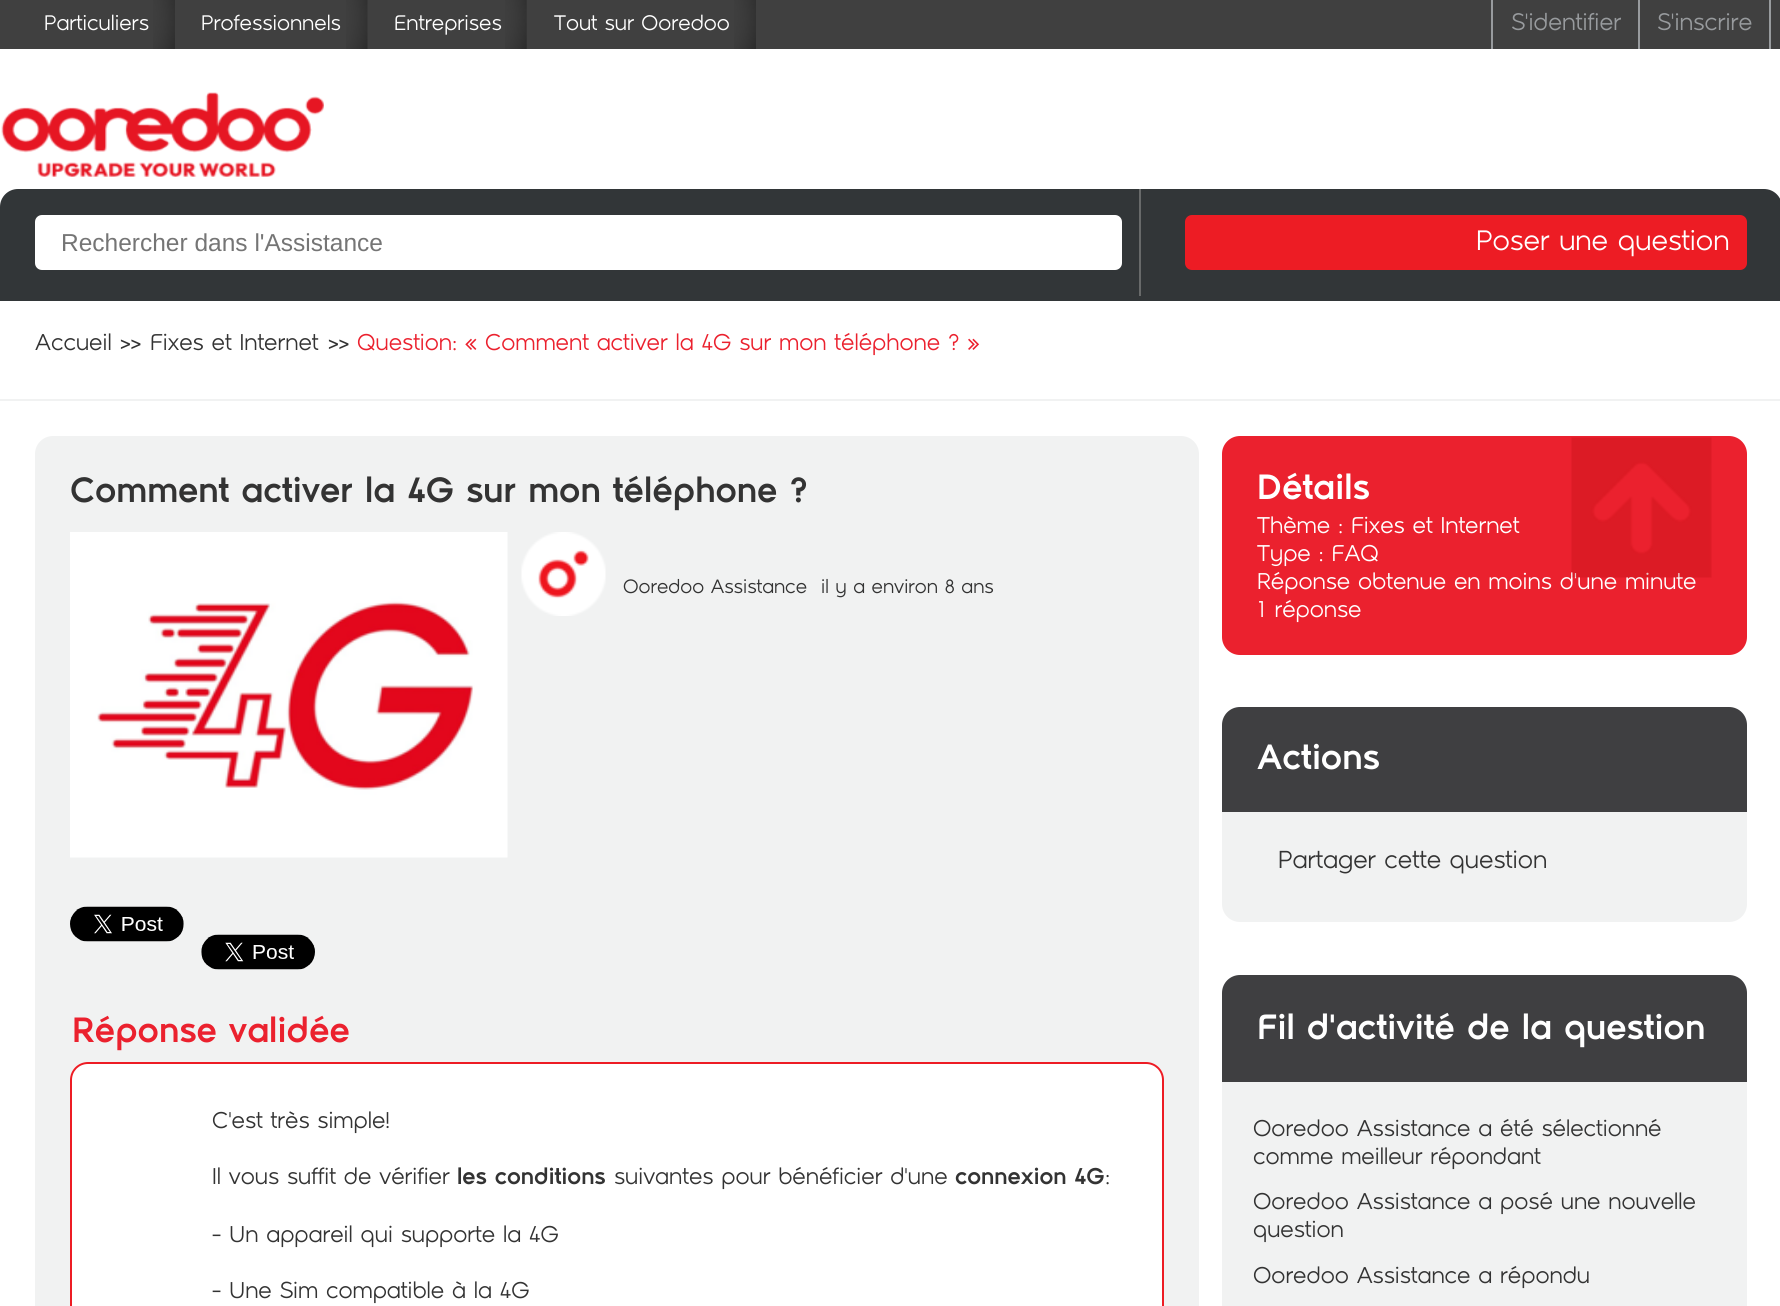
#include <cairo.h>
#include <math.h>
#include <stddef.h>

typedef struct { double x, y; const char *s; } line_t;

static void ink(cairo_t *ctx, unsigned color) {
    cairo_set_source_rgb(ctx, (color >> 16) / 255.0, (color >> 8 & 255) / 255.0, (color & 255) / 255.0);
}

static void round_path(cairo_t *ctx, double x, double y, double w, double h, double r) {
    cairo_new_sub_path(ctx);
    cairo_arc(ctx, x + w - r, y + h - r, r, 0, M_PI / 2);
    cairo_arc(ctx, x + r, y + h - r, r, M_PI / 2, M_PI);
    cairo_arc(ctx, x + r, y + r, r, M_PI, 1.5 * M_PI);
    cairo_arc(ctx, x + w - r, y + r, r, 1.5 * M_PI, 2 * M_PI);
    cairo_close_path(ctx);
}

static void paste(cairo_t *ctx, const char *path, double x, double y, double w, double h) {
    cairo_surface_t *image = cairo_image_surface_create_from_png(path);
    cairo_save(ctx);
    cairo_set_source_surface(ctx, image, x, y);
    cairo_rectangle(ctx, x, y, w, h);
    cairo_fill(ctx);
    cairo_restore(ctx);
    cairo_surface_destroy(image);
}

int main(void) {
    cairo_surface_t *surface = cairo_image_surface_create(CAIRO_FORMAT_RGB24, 1780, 1306);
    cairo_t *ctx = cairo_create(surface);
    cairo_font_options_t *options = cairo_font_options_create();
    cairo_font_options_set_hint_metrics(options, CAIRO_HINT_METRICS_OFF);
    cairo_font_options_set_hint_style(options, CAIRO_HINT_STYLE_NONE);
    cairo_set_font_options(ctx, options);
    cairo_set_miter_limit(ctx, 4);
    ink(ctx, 0x404040);
    cairo_paint(ctx);
    paste(ctx, "media/1.png", 153, 0, 22, 49);
    cairo_select_font_face(ctx, "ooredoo", CAIRO_FONT_SLANT_NORMAL, CAIRO_FONT_WEIGHT_NORMAL);
    cairo_set_font_size(ctx, 21);
    ink(ctx, 0xFFFFFF);
    cairo_move_to(ctx, 44, 30);
    cairo_show_text(ctx, "Particuliers");
    paste(ctx, "media/2.png", 346, 0, 22, 49);
    cairo_move_to(ctx, 201, 30);
    cairo_show_text(ctx, "Professionnels");
    paste(ctx, "media/3.png", 505, 0, 22, 49);
    cairo_move_to(ctx, 394, 30);
    cairo_show_text(ctx, "Entreprises");
    paste(ctx, "media/4.png", 734, 0, 22, 49);
    cairo_move_to(ctx, 554, 30);
    cairo_show_text(ctx, "Tout sur Ooredoo");
    ink(ctx, 0x989B9E);
    cairo_rectangle(ctx, 1638, 0, 2, 49);
    cairo_fill(ctx);
    cairo_rectangle(ctx, 1491, 0, 2, 49);
    cairo_fill(ctx);
    cairo_set_font_size(ctx, 23.5);
    cairo_move_to(ctx, 1511, 30);
    cairo_show_text(ctx, "S'identifier");
    cairo_rectangle(ctx, 1769, 0, 2, 49);
    cairo_fill(ctx);
    cairo_move_to(ctx, 1657, 30);
    cairo_show_text(ctx, "S'inscrire");
    ink(ctx, 0xFFFFFF);
    cairo_rectangle(ctx, 0, 49, 1780, 158);
    cairo_fill(ctx);
    paste(ctx, "media/5.png", 1, 92, 323, 85);
    ink(ctx, 0x323638);
    cairo_new_path(ctx);
    cairo_move_to(ctx, 18, 189);
    cairo_line_to(ctx, 1764, 189);
    cairo_curve_to(ctx, 1774, 189, 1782, 197, 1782, 207);
    cairo_line_to(ctx, 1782, 301);
    cairo_line_to(ctx, 0, 301);
    cairo_line_to(ctx, 0, 207);
    cairo_curve_to(ctx, 0, 197, 8, 189, 18, 189);
    cairo_close_path(ctx);
    cairo_fill(ctx);
    ink(ctx, 0x686A6A);
    cairo_rectangle(ctx, 1139, 189, 2, 107);
    cairo_fill(ctx);
    ink(ctx, 0xFFFFFF);
    round_path(ctx, 35, 215, 1087, 55, 7);
    cairo_fill(ctx);
    cairo_select_font_face(ctx, "Liberation Sans", CAIRO_FONT_SLANT_NORMAL, CAIRO_FONT_WEIGHT_NORMAL);
    cairo_set_font_size(ctx, 24.5);
    ink(ctx, 0x757575);
    cairo_move_to(ctx, 61, 251);
    cairo_show_text(ctx, "Rechercher dans l'Assistance");
    ink(ctx, 0xED1C24);
    round_path(ctx, 1185, 215, 562, 55, 7);
    cairo_fill(ctx);
    cairo_select_font_face(ctx, "ooredoo", CAIRO_FONT_SLANT_NORMAL, CAIRO_FONT_WEIGHT_NORMAL);
    cairo_set_font_size(ctx, 28);
    ink(ctx, 0xFFFFFF);
    cairo_move_to(ctx, 1476, 250);
    cairo_show_text(ctx, "Poser une question");
    cairo_rectangle(ctx, 0, 301, 1780, 98);
    cairo_fill(ctx);
    ink(ctx, 0xF1F2F2);
    cairo_rectangle(ctx, 0, 399, 1780, 2);
    cairo_fill(ctx);
    cairo_set_font_size(ctx, 22.75);
    ink(ctx, 0x333333);
    {
        static const line_t items[] = {
            {35, 350, "Accueil"},
            {120, 350, ">>"},
            {150, 350, "Fixes et Internet"},
            {328, 350, ">>"},
        };
        for (size_t i = 0; i < sizeof items / sizeof *items; i++) {
            cairo_move_to(ctx, items[i].x, items[i].y);
            cairo_show_text(ctx, items[i].s);
        }
    }
    ink(ctx, 0xEB212E);
    cairo_move_to(ctx, 357, 350);
    cairo_show_text(ctx, "Question: « Comment activer la 4G sur mon téléphone ? »");
    ink(ctx, 0xFFFFFF);
    cairo_rectangle(ctx, 0, 401, 1780, 905);
    cairo_fill(ctx);
    ink(ctx, 0xEB212E);
    round_path(ctx, 1222, 436, 525, 219, 18);
    cairo_fill(ctx);
    ink(ctx, 0xFFFFFF);
    cairo_move_to(ctx, 1257, 589);
    cairo_show_text(ctx, "Réponse obtenue en moins d'une minute");
    paste(ctx, "media/6.png", 1571, 437, 141, 141);
    ink(ctx, 0xF1F2F2);
    round_path(ctx, 35, 436, 1164, 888, 18);
    cairo_fill(ctx);
    cairo_select_font_face(ctx, "ooredoo", CAIRO_FONT_SLANT_NORMAL, CAIRO_FONT_WEIGHT_BOLD);
    cairo_set_font_size(ctx, 35);
    ink(ctx, 0x333333);
    cairo_move_to(ctx, 70, 502);
    cairo_show_text(ctx, "Comment activer la 4G sur mon téléphone ?");
    paste(ctx, "media/7.png", 70, 532, 438, 326);
    paste(ctx, "media/8.png", 521, 532, 85, 84);
    cairo_select_font_face(ctx, "ooredoo", CAIRO_FONT_SLANT_NORMAL, CAIRO_FONT_WEIGHT_NORMAL);
    cairo_set_font_size(ctx, 19.25);
    cairo_move_to(ctx, 623, 593);
    cairo_show_text(ctx, "Ooredoo Assistance");
    cairo_move_to(ctx, 821, 593);
    cairo_show_text(ctx, "il y a environ 8 ans");
    paste(ctx, "media/9.png", 70, 906, 114, 36);
    paste(ctx, "media/10.png", 201, 934, 114, 36);
    ink(ctx, 0xFFFFFF);
    cairo_new_path(ctx);
    cairo_move_to(ctx, 88, 1062);
    cairo_line_to(ctx, 1146, 1062);
    cairo_curve_to(ctx, 1156, 1062, 1164, 1070, 1164, 1080);
    cairo_line_to(ctx, 1164, 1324);
    cairo_line_to(ctx, 70, 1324);
    cairo_line_to(ctx, 70, 1080);
    cairo_curve_to(ctx, 70, 1070, 78, 1062, 88, 1062);
    cairo_close_path(ctx);
    cairo_fill(ctx);
    ink(ctx, 0xED1C24);
    cairo_set_fill_rule(ctx, CAIRO_FILL_RULE_EVEN_ODD);
    cairo_new_path(ctx);
    cairo_move_to(ctx, 88, 1062);
    cairo_line_to(ctx, 1146, 1062);
    cairo_curve_to(ctx, 1156, 1062, 1164, 1070, 1164, 1080);
    cairo_line_to(ctx, 1164, 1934);
    cairo_line_to(ctx, 70, 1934);
    cairo_line_to(ctx, 70, 1080);
    cairo_curve_to(ctx, 70, 1070, 78, 1062, 88, 1062);
    cairo_close_path(ctx);
    cairo_move_to(ctx, 88, 1064);
    cairo_line_to(ctx, 1146, 1064);
    cairo_curve_to(ctx, 1155, 1064, 1162, 1071, 1162, 1080);
    cairo_line_to(ctx, 1162, 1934);
    cairo_line_to(ctx, 72, 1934);
    cairo_line_to(ctx, 72, 1080);
    cairo_curve_to(ctx, 72, 1071, 79, 1064, 88, 1064);
    cairo_close_path(ctx);
    cairo_fill(ctx);
    cairo_select_font_face(ctx, "ooredoo", CAIRO_FONT_SLANT_NORMAL, CAIRO_FONT_WEIGHT_BOLD);
    cairo_set_font_size(ctx, 35);
    ink(ctx, 0xEB212E);
    cairo_move_to(ctx, 72, 1042);
    cairo_show_text(ctx, "Réponse validée");
    cairo_select_font_face(ctx, "ooredoo", CAIRO_FONT_SLANT_NORMAL, CAIRO_FONT_WEIGHT_NORMAL);
    cairo_set_font_size(ctx, 22.75);
    ink(ctx, 0x333333);
    cairo_move_to(ctx, 212, 1128);
    cairo_show_text(ctx, "C'est très simple!");
    cairo_move_to(ctx, 212, 1184);
    cairo_show_text(ctx, "Il vous suffit de vérifier");
    cairo_select_font_face(ctx, "ooredoo", CAIRO_FONT_SLANT_NORMAL, CAIRO_FONT_WEIGHT_BOLD);
    cairo_move_to(ctx, 457, 1184);
    cairo_show_text(ctx, "les conditions");
    cairo_select_font_face(ctx, "ooredoo", CAIRO_FONT_SLANT_NORMAL, CAIRO_FONT_WEIGHT_NORMAL);
    cairo_move_to(ctx, 614, 1184);
    cairo_show_text(ctx, "suivantes pour bénéficier d'une");
    cairo_select_font_face(ctx, "ooredoo", CAIRO_FONT_SLANT_NORMAL, CAIRO_FONT_WEIGHT_BOLD);
    cairo_move_to(ctx, 955, 1184);
    cairo_show_text(ctx, "connexion 4G");
    cairo_select_font_face(ctx, "ooredoo", CAIRO_FONT_SLANT_NORMAL, CAIRO_FONT_WEIGHT_NORMAL);
    {
        static const line_t items[] = {
            {1105, 1184, ":"},
            {212, 1242, "- Un appareil qui supporte la 4G"},
            {212, 1298, "- Une Sim compatible à la 4G"},
        };
        for (size_t i = 0; i < sizeof items / sizeof *items; i++) {
            cairo_move_to(ctx, items[i].x, items[i].y);
            cairo_show_text(ctx, items[i].s);
        }
    }
    cairo_select_font_face(ctx, "ooredoo", CAIRO_FONT_SLANT_NORMAL, CAIRO_FONT_WEIGHT_BOLD);
    cairo_set_font_size(ctx, 35);
    ink(ctx, 0xFFFFFF);
    cairo_move_to(ctx, 1257, 499);
    cairo_show_text(ctx, "Détails");
    cairo_select_font_face(ctx, "ooredoo", CAIRO_FONT_SLANT_NORMAL, CAIRO_FONT_WEIGHT_NORMAL);
    cairo_set_font_size(ctx, 22.75);
    {
        static const line_t items[] = {
            {1257, 533, "Thème : Fixes et Internet"},
            {1257, 561, "Type : FAQ"},
            {1257, 617, "1 réponse"},
        };
        for (size_t i = 0; i < sizeof items / sizeof *items; i++) {
            cairo_move_to(ctx, items[i].x, items[i].y);
            cairo_show_text(ctx, items[i].s);
        }
    }
    ink(ctx, 0x3F3F41);
    cairo_new_path(ctx);
    cairo_move_to(ctx, 1240, 707);
    cairo_line_to(ctx, 1729, 707);
    cairo_curve_to(ctx, 1739, 707, 1747, 715, 1747, 725);
    cairo_line_to(ctx, 1747, 812);
    cairo_line_to(ctx, 1222, 812);
    cairo_line_to(ctx, 1222, 725);
    cairo_curve_to(ctx, 1222, 715, 1230, 707, 1240, 707);
    cairo_close_path(ctx);
    cairo_fill(ctx);
    cairo_select_font_face(ctx, "ooredoo", CAIRO_FONT_SLANT_NORMAL, CAIRO_FONT_WEIGHT_BOLD);
    cairo_set_font_size(ctx, 35);
    ink(ctx, 0xFFFFFF);
    cairo_move_to(ctx, 1257, 769);
    cairo_show_text(ctx, "Actions");
    ink(ctx, 0xF1F2F2);
    cairo_new_path(ctx);
    cairo_move_to(ctx, 1222, 812);
    cairo_line_to(ctx, 1747, 812);
    cairo_line_to(ctx, 1747, 904);
    cairo_curve_to(ctx, 1747, 914, 1739, 922, 1729, 922);
    cairo_line_to(ctx, 1240, 922);
    cairo_curve_to(ctx, 1230, 922, 1222, 914, 1222, 904);
    cairo_close_path(ctx);
    cairo_fill(ctx);
    cairo_select_font_face(ctx, "ooredoo", CAIRO_FONT_SLANT_NORMAL, CAIRO_FONT_WEIGHT_NORMAL);
    cairo_set_font_size(ctx, 24.5);
    ink(ctx, 0x333333);
    cairo_move_to(ctx, 1278, 868);
    cairo_show_text(ctx, "Partager cette question");
    ink(ctx, 0x3F3F41);
    cairo_new_path(ctx);
    cairo_move_to(ctx, 1240, 975);
    cairo_line_to(ctx, 1729, 975);
    cairo_curve_to(ctx, 1739, 975, 1747, 983, 1747, 993);
    cairo_line_to(ctx, 1747, 1082);
    cairo_line_to(ctx, 1222, 1082);
    cairo_line_to(ctx, 1222, 993);
    cairo_curve_to(ctx, 1222, 983, 1230, 975, 1240, 975);
    cairo_close_path(ctx);
    cairo_fill(ctx);
    cairo_select_font_face(ctx, "ooredoo", CAIRO_FONT_SLANT_NORMAL, CAIRO_FONT_WEIGHT_BOLD);
    cairo_set_font_size(ctx, 35);
    ink(ctx, 0xFFFFFF);
    cairo_move_to(ctx, 1257, 1039);
    cairo_show_text(ctx, "Fil d'activité de la question");
    ink(ctx, 0xF1F2F2);
    cairo_rectangle(ctx, 1222, 1082, 525, 224);
    cairo_fill(ctx);
    cairo_select_font_face(ctx, "ooredoo", CAIRO_FONT_SLANT_NORMAL, CAIRO_FONT_WEIGHT_NORMAL);
    cairo_set_font_size(ctx, 22.75);
    ink(ctx, 0x333333);
    {
        static const line_t items[] = {
            {1253, 1136, "Ooredoo Assistance a été sélectionné"},
            {1253, 1164, "comme meilleur répondant"},
            {1253, 1209, "Ooredoo Assistance a posé une nouvelle"},
            {1253, 1237, "question"},
            {1253, 1283, "Ooredoo Assistance a répondu"},
        };
        for (size_t i = 0; i < sizeof items / sizeof *items; i++) {
            cairo_move_to(ctx, items[i].x, items[i].y);
            cairo_show_text(ctx, items[i].s);
        }
    }
    cairo_surface_write_to_png(surface, "image.png");
    cairo_font_options_destroy(options);
    cairo_destroy(ctx);
    cairo_surface_destroy(surface);
    return 0;
}
